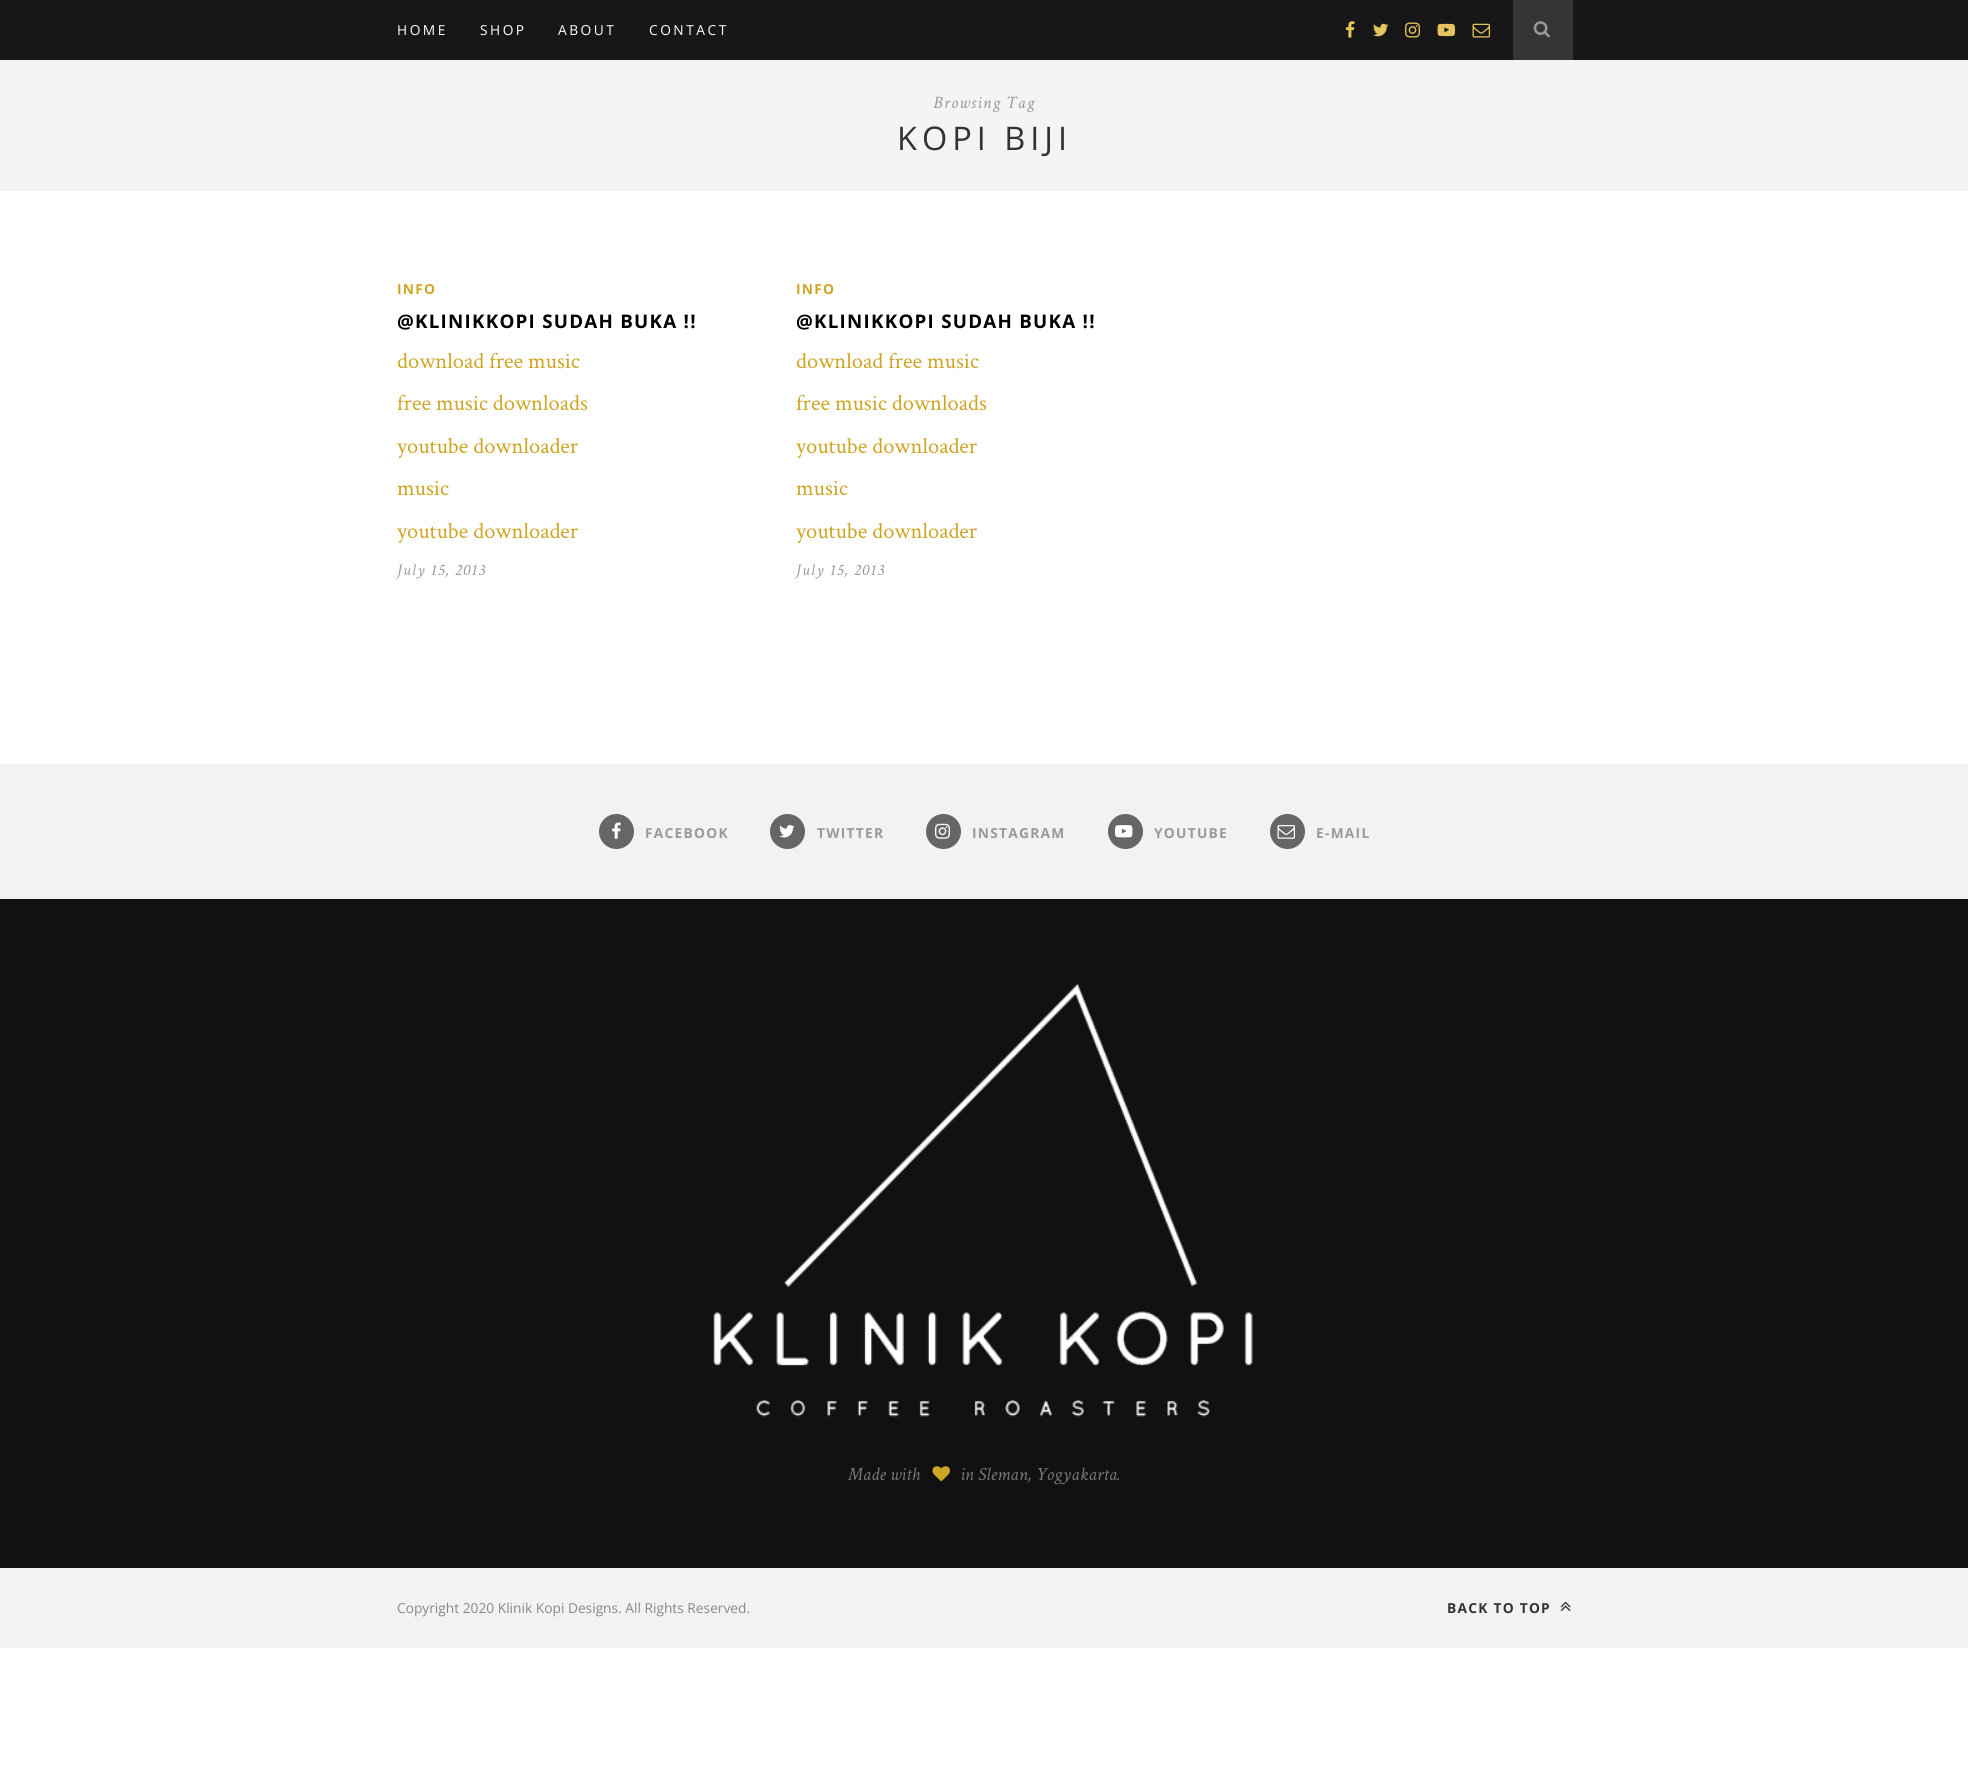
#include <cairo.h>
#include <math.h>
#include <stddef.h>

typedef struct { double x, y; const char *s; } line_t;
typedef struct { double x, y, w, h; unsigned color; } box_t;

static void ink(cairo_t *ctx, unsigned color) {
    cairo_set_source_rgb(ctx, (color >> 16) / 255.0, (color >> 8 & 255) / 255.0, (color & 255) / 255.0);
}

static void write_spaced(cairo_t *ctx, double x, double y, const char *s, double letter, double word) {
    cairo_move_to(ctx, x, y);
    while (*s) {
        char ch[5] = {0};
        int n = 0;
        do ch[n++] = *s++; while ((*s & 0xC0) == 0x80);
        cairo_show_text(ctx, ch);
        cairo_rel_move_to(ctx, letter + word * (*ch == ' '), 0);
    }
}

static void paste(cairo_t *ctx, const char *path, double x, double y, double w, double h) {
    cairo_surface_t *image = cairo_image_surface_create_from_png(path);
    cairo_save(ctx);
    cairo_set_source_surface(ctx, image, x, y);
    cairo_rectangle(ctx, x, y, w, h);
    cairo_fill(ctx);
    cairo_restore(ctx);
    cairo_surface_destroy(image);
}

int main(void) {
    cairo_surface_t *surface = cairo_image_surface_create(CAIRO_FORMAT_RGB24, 1968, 1786);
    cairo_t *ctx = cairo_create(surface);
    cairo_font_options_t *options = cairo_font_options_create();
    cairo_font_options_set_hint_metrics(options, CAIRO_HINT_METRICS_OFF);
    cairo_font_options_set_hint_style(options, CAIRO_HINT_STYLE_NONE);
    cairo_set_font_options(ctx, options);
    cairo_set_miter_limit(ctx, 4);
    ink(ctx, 0xFFFFFF);
    cairo_paint(ctx);
    ink(ctx, 0x171717);
    cairo_rectangle(ctx, 0, 0, 1968, 60);
    cairo_fill(ctx);
    cairo_select_font_face(ctx, "Open Sans", CAIRO_FONT_SLANT_NORMAL, CAIRO_FONT_WEIGHT_NORMAL);
    cairo_set_font_size(ctx, 13.75);
    ink(ctx, 0xFFFFFF);
    {
        static const line_t items[] = {
            {397, 35, "HOME"},
            {480, 35, "SHOP"},
            {558, 35, "ABOUT"},
            {649, 35, "CONTACT"},
        };
        for (size_t i = 0; i < sizeof items / sizeof *items; i++) {
            write_spaced(ctx, items[i].x, items[i].y, items[i].s, 2.5, 0);
        }
    }
    paste(ctx, "media/1.png", 1345, 21, 10, 17);
    paste(ctx, "media/2.png", 1373, 23, 16, 14);
    paste(ctx, "media/3.png", 1405, 22, 15, 16);
    paste(ctx, "media/4.png", 1437, 23, 18, 14);
    paste(ctx, "media/5.png", 1472, 23, 18, 15);
    ink(ctx, 0x353535);
    cairo_rectangle(ctx, 1513, 0, 60, 60);
    cairo_fill(ctx);
    paste(ctx, "media/6.png", 1533, 21, 17, 17);
    {
        static const box_t items[] = {
            {0, 60, 1968, 1, 0xEEEEEE},
            {0, 61, 1968, 129, 0xF4F4F4},
            {0, 190, 1968, 1, 0xEEEEEE},
        };
        for (size_t i = 0; i < sizeof items / sizeof *items; i++) {
            ink(ctx, items[i].color);
            cairo_rectangle(ctx, items[i].x, items[i].y, items[i].w, items[i].h);
            cairo_fill(ctx);
        }
    }
    cairo_select_font_face(ctx, "Crimson Text", CAIRO_FONT_SLANT_ITALIC, CAIRO_FONT_WEIGHT_NORMAL);
    cairo_set_font_size(ctx, 17.5);
    ink(ctx, 0x999999);
    write_spaced(ctx, 933, 108, "Browsing Tag", 1.25, 0);
    cairo_select_font_face(ctx, "Open Sans", CAIRO_FONT_SLANT_NORMAL, CAIRO_FONT_WEIGHT_NORMAL);
    cairo_set_font_size(ctx, 32.5);
    ink(ctx, 0x333333);
    write_spaced(ctx, 897, 150, "KOPI BIJI", 5, 0);
    cairo_select_font_face(ctx, "Open Sans", CAIRO_FONT_SLANT_NORMAL, CAIRO_FONT_WEIGHT_BOLD);
    cairo_set_font_size(ctx, 13.75);
    ink(ctx, 0xCEA525);
    write_spaced(ctx, 397, 294, "INFO", 1.25, 0);
    cairo_set_font_size(ctx, 18.75);
    ink(ctx, 0x000000);
    write_spaced(ctx, 397, 328, "@KLINIKKOPI SUDAH BUKA !!", 1.25, 0);
    cairo_select_font_face(ctx, "Crimson Text", CAIRO_FONT_SLANT_NORMAL, CAIRO_FONT_WEIGHT_NORMAL);
    cairo_set_font_size(ctx, 22.5);
    ink(ctx, 0xCEA525);
    {
        static const line_t items[] = {
            {397, 368, "download free music"},
            {397, 410, "free music downloads"},
            {397, 453, "youtube downloader"},
            {397, 495, "music"},
            {397, 538, "youtube downloader"},
        };
        for (size_t i = 0; i < sizeof items / sizeof *items; i++) {
            cairo_move_to(ctx, items[i].x, items[i].y);
            cairo_show_text(ctx, items[i].s);
        }
    }
    cairo_select_font_face(ctx, "Crimson Text", CAIRO_FONT_SLANT_ITALIC, CAIRO_FONT_WEIGHT_NORMAL);
    cairo_set_font_size(ctx, 16.25);
    ink(ctx, 0x999999);
    write_spaced(ctx, 397, 575, "July 15, 2013", 1.25, 0);
    cairo_select_font_face(ctx, "Open Sans", CAIRO_FONT_SLANT_NORMAL, CAIRO_FONT_WEIGHT_BOLD);
    cairo_set_font_size(ctx, 13.75);
    ink(ctx, 0xCEA525);
    write_spaced(ctx, 796, 294, "INFO", 1.25, 0);
    cairo_set_font_size(ctx, 18.75);
    ink(ctx, 0x000000);
    write_spaced(ctx, 796, 328, "@KLINIKKOPI SUDAH BUKA !!", 1.25, 0);
    cairo_select_font_face(ctx, "Crimson Text", CAIRO_FONT_SLANT_NORMAL, CAIRO_FONT_WEIGHT_NORMAL);
    cairo_set_font_size(ctx, 22.5);
    ink(ctx, 0xCEA525);
    {
        static const line_t items[] = {
            {796, 368, "download free music"},
            {796, 410, "free music downloads"},
            {796, 453, "youtube downloader"},
            {796, 495, "music"},
            {796, 538, "youtube downloader"},
        };
        for (size_t i = 0; i < sizeof items / sizeof *items; i++) {
            cairo_move_to(ctx, items[i].x, items[i].y);
            cairo_show_text(ctx, items[i].s);
        }
    }
    cairo_select_font_face(ctx, "Crimson Text", CAIRO_FONT_SLANT_ITALIC, CAIRO_FONT_WEIGHT_NORMAL);
    cairo_set_font_size(ctx, 16.25);
    ink(ctx, 0x999999);
    write_spaced(ctx, 796, 575, "July 15, 2013", 1.25, 0);
    ink(ctx, 0xF2F2F2);
    cairo_rectangle(ctx, 0, 764, 1968, 135);
    cairo_fill(ctx);
    ink(ctx, 0x666666);
    cairo_arc(ctx, 616.5, 831.5, 17.5, 0, 2 * M_PI);
    cairo_fill(ctx);
    paste(ctx, "media/7.png", 612, 822, 9, 17);
    cairo_select_font_face(ctx, "Open Sans", CAIRO_FONT_SLANT_NORMAL, CAIRO_FONT_WEIGHT_BOLD);
    cairo_set_font_size(ctx, 13.75);
    ink(ctx, 0x999999);
    write_spaced(ctx, 645, 838, "FACEBOOK", 1.25, 0);
    ink(ctx, 0x666666);
    cairo_new_path(ctx);
    cairo_arc(ctx, 787.5, 831.5, 17.5, 0, 2 * M_PI);
    cairo_fill(ctx);
    paste(ctx, "media/8.png", 779, 825, 16, 13);
    ink(ctx, 0x999999);
    write_spaced(ctx, 817, 838, "TWITTER", 1.25, 0);
    ink(ctx, 0x666666);
    cairo_new_path(ctx);
    cairo_arc(ctx, 943.5, 831.5, 17.5, 0, 2 * M_PI);
    cairo_fill(ctx);
    paste(ctx, "media/9.png", 935, 823, 15, 16);
    ink(ctx, 0x999999);
    write_spaced(ctx, 972, 838, "INSTAGRAM", 1.25, 0);
    ink(ctx, 0x666666);
    cairo_new_path(ctx);
    cairo_arc(ctx, 1125.5, 831.5, 17.5, 0, 2 * M_PI);
    cairo_fill(ctx);
    paste(ctx, "media/10.png", 1115, 825, 18, 13);
    ink(ctx, 0x999999);
    write_spaced(ctx, 1154, 838, "YOUTUBE", 1.25, 0);
    ink(ctx, 0x666666);
    cairo_new_path(ctx);
    cairo_arc(ctx, 1287.5, 831.5, 17.5, 0, 2 * M_PI);
    cairo_fill(ctx);
    paste(ctx, "media/11.png", 1277, 825, 18, 14);
    ink(ctx, 0x999999);
    write_spaced(ctx, 1316, 838, "E-MAIL", 1.25, 0);
    ink(ctx, 0x111111);
    cairo_rectangle(ctx, 0, 899, 1968, 669);
    cairo_fill(ctx);
    paste(ctx, "media/12.png", 713, 983, 540, 434);
    cairo_select_font_face(ctx, "Crimson Text", CAIRO_FONT_SLANT_ITALIC, CAIRO_FONT_WEIGHT_NORMAL);
    cairo_set_font_size(ctx, 18.75);
    ink(ctx, 0x777777);
    cairo_move_to(ctx, 848, 1480);
    cairo_show_text(ctx, "Made with");
    paste(ctx, "media/13.png", 932, 1466, 18, 16);
    cairo_move_to(ctx, 960, 1480);
    cairo_show_text(ctx, "in Sleman, Yogyakarta.");
    ink(ctx, 0xF2F2F2);
    cairo_rectangle(ctx, 0, 1568, 1968, 80);
    cairo_fill(ctx);
    cairo_select_font_face(ctx, "Open Sans", CAIRO_FONT_SLANT_NORMAL, CAIRO_FONT_WEIGHT_NORMAL);
    cairo_set_font_size(ctx, 13.75);
    ink(ctx, 0x888888);
    cairo_move_to(ctx, 397, 1613);
    cairo_show_text(ctx, "Copyright 2020 Klinik Kopi Designs. All Rights Reserved.");
    cairo_select_font_face(ctx, "Open Sans", CAIRO_FONT_SLANT_NORMAL, CAIRO_FONT_WEIGHT_BOLD);
    ink(ctx, 0x333333);
    write_spaced(ctx, 1447, 1613, "BACK TO TOP", 1.25, 0);
    paste(ctx, "media/14.png", 1560, 1601, 11, 11);
    cairo_surface_write_to_png(surface, "image.png");
    cairo_font_options_destroy(options);
    cairo_destroy(ctx);
    cairo_surface_destroy(surface);
    return 0;
}
